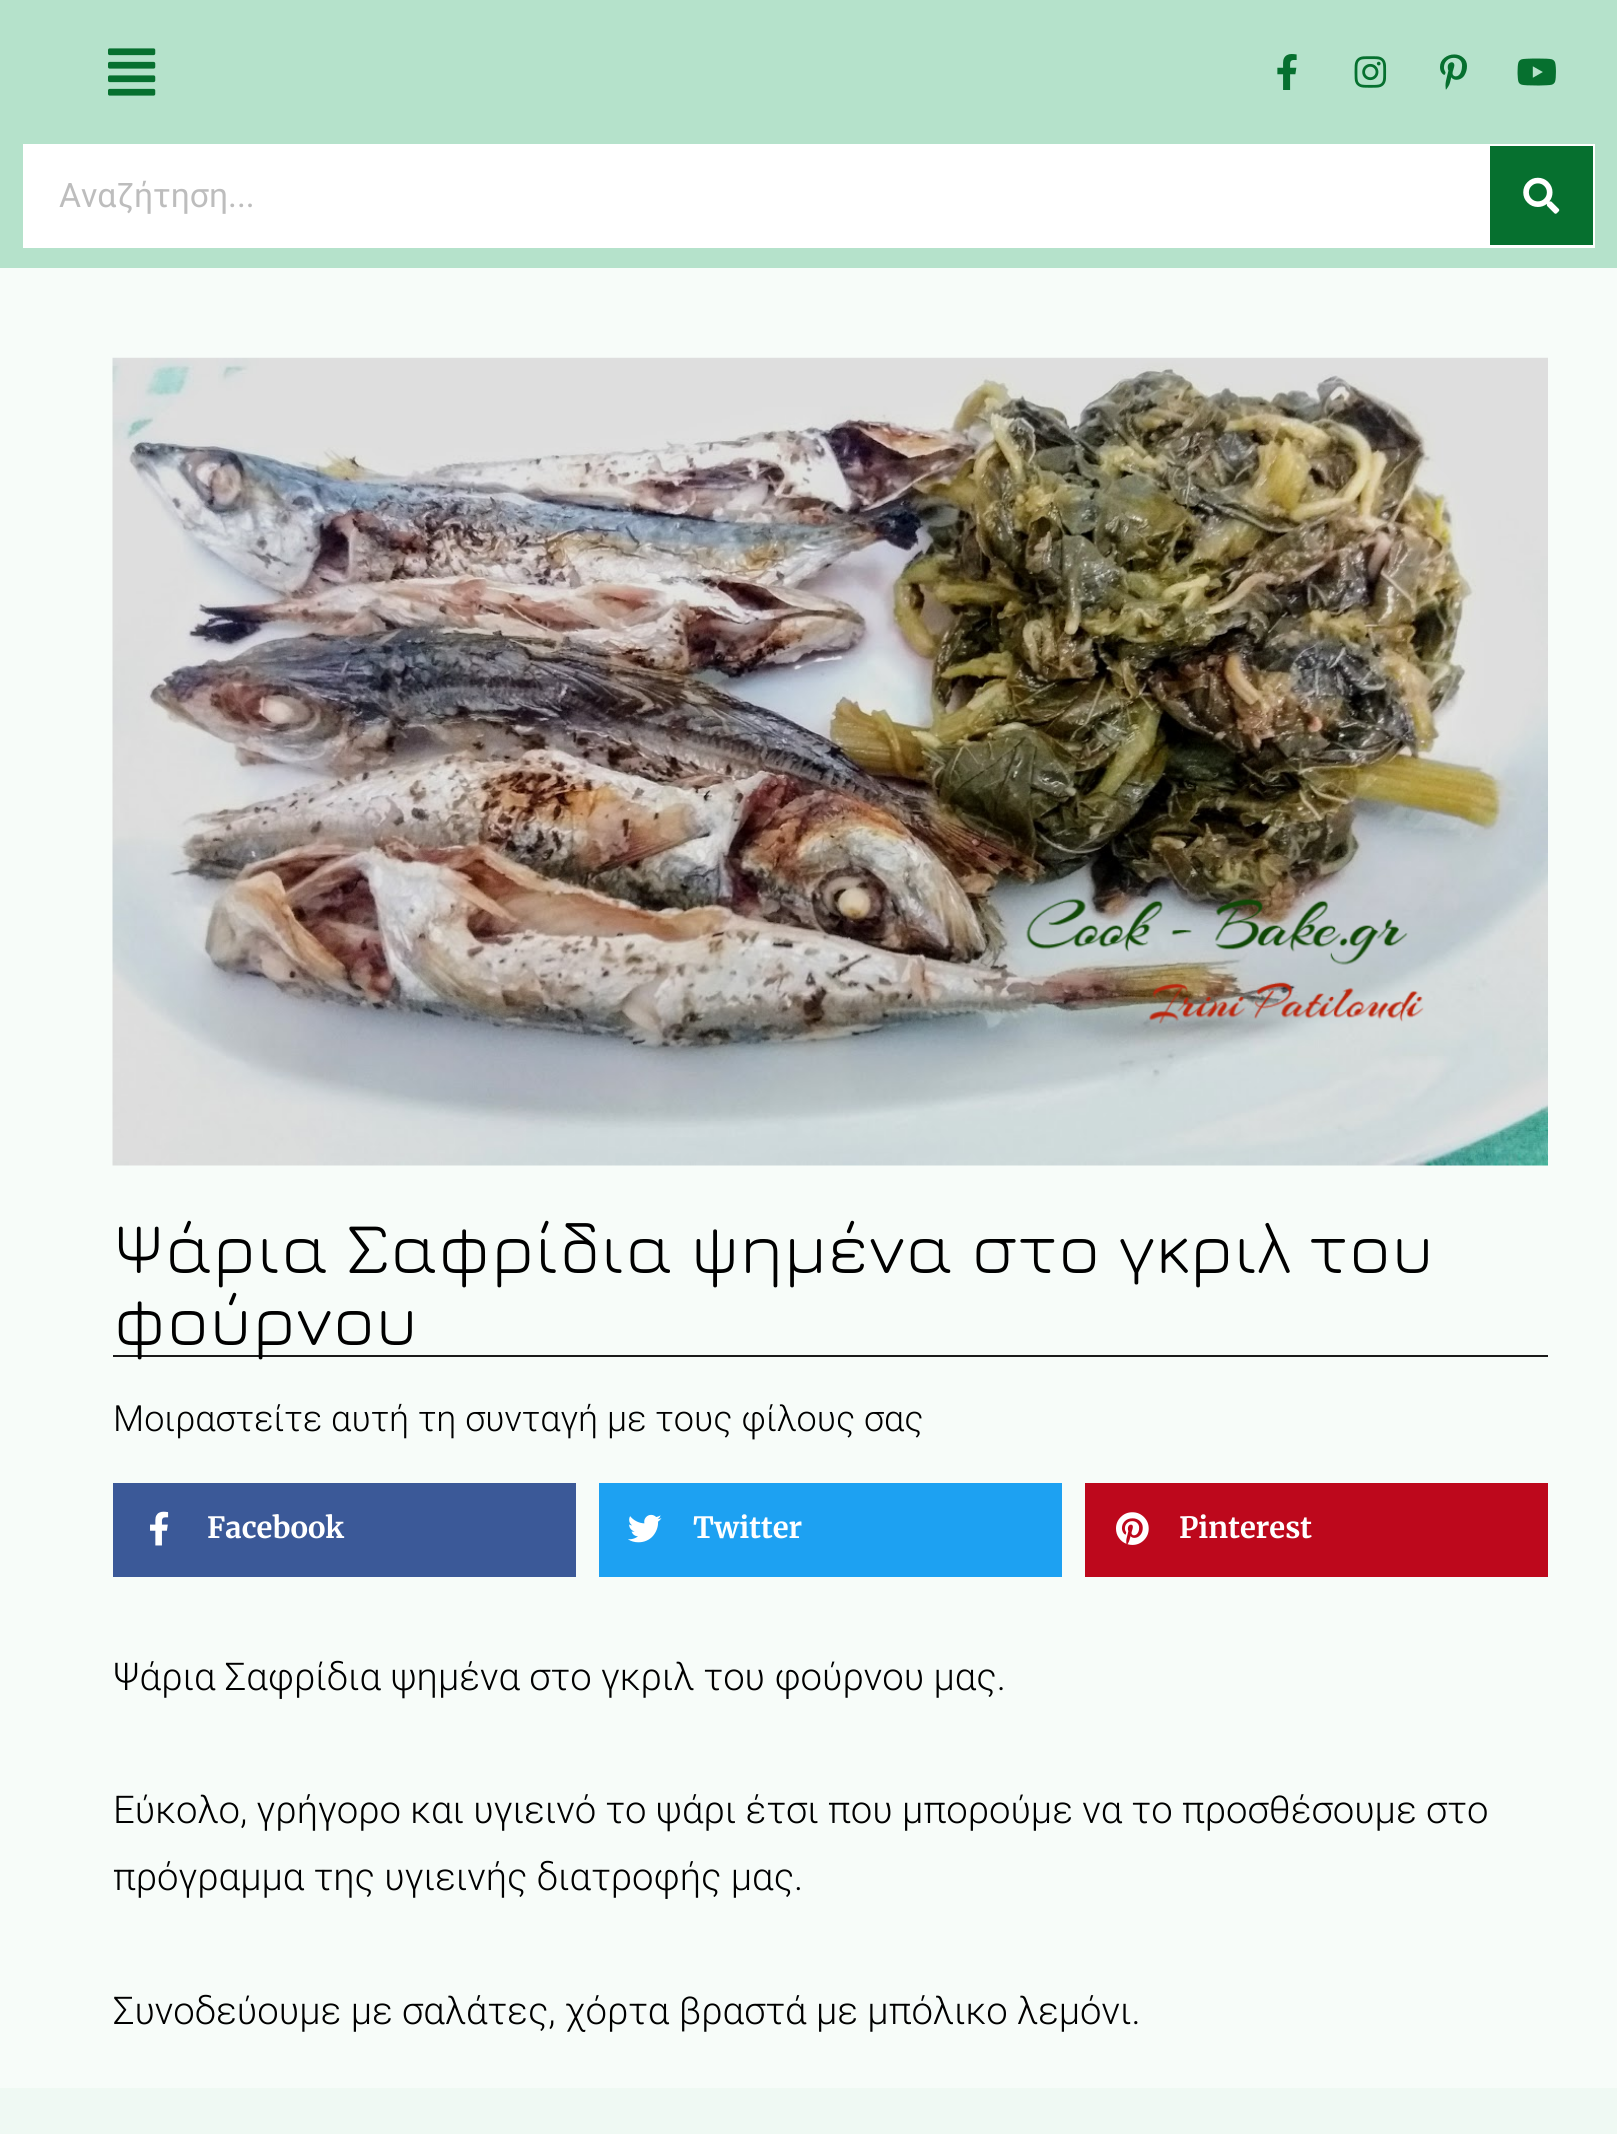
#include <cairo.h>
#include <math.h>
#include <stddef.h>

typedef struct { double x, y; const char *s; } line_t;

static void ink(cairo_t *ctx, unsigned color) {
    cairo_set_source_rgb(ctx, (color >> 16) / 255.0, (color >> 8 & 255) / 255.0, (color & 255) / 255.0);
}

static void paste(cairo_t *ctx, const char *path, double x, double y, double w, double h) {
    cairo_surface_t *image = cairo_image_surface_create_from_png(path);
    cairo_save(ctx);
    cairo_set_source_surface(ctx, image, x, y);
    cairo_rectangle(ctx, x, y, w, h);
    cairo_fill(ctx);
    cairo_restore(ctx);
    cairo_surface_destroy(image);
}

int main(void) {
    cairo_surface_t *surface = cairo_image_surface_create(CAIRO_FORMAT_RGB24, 1617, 2134);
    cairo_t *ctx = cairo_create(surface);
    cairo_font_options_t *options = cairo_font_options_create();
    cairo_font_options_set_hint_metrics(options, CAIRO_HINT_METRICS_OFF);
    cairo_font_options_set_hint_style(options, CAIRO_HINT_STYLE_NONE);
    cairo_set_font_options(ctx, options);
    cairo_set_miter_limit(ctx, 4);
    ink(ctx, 0xF7FCF9);
    cairo_paint(ctx);
    ink(ctx, 0xB5E2CB);
    cairo_rectangle(ctx, 0, 0, 1617, 268);
    cairo_fill(ctx);
    paste(ctx, "media/1.png", 108, 48, 48, 48);
    paste(ctx, "media/2.png", 1277, 54, 20, 36);
    paste(ctx, "media/3.png", 1354, 56, 33, 32);
    paste(ctx, "media/4.png", 1440, 54, 27, 36);
    paste(ctx, "media/5.png", 1517, 58, 39, 28);
    ink(ctx, 0xFFFFFF);
    cairo_rectangle(ctx, 23, 144, 1572, 104);
    cairo_fill(ctx);
    cairo_select_font_face(ctx, "Roboto", CAIRO_FONT_SLANT_NORMAL, CAIRO_FONT_WEIGHT_NORMAL);
    cairo_set_font_size(ctx, 33.75);
    ink(ctx, 0xBDBDBD);
    cairo_move_to(ctx, 59, 207);
    cairo_show_text(ctx, "Αναζήτηση...");
    ink(ctx, 0x06702F);
    cairo_rectangle(ctx, 1490, 146, 103, 99);
    cairo_fill(ctx);
    paste(ctx, "media/6.png", 1523, 177, 37, 37);
    paste(ctx, "media/7.png", 112, 357, 1436, 809);
    ink(ctx, 0x1A1A1A);
    cairo_rectangle(ctx, 113, 1355, 1435, 2);
    cairo_fill(ctx);
    cairo_select_font_face(ctx, "Jura", CAIRO_FONT_SLANT_NORMAL, CAIRO_FONT_WEIGHT_NORMAL);
    cairo_set_font_size(ctx, 72);
    ink(ctx, 0x000000);
    cairo_move_to(ctx, 113, 1273);
    cairo_show_text(ctx, "Ψάρια Σαφρίδια ψημένα στο γκριλ του");
    cairo_move_to(ctx, 113, 1345);
    cairo_show_text(ctx, "φούρνου");
    cairo_select_font_face(ctx, "Roboto Light", CAIRO_FONT_SLANT_NORMAL, CAIRO_FONT_WEIGHT_NORMAL);
    cairo_set_font_size(ctx, 36);
    cairo_move_to(ctx, 113, 1431);
    cairo_show_text(ctx, "Μοιραστείτε αυτή τη συνταγή με τους φίλους σας");
    ink(ctx, 0x3B5998);
    cairo_rectangle(ctx, 113, 1483, 463, 94);
    cairo_fill(ctx);
    paste(ctx, "media/8.png", 150, 1511, 19, 35);
    cairo_select_font_face(ctx, "Merriweather", CAIRO_FONT_SLANT_NORMAL, CAIRO_FONT_WEIGHT_BOLD);
    cairo_set_font_size(ctx, 29.25);
    ink(ctx, 0xFFFFFF);
    cairo_move_to(ctx, 207, 1538);
    cairo_show_text(ctx, "Facebook");
    ink(ctx, 0x1DA1F2);
    cairo_rectangle(ctx, 599, 1483, 463, 94);
    cairo_fill(ctx);
    paste(ctx, "media/9.png", 628, 1514, 34, 29);
    ink(ctx, 0xFFFFFF);
    cairo_move_to(ctx, 693, 1538);
    cairo_show_text(ctx, "Twitter");
    ink(ctx, 0xBD081C);
    cairo_rectangle(ctx, 1085, 1483, 463, 94);
    cairo_fill(ctx);
    paste(ctx, "media/10.png", 1116, 1512, 33, 33);
    ink(ctx, 0xFFFFFF);
    cairo_move_to(ctx, 1179, 1538);
    cairo_show_text(ctx, "Pinterest");
    cairo_select_font_face(ctx, "Roboto Light", CAIRO_FONT_SLANT_NORMAL, CAIRO_FONT_WEIGHT_NORMAL);
    cairo_set_font_size(ctx, 38.25);
    ink(ctx, 0x000000);
    {
        static const line_t items[] = {
            {113, 1690, "Ψάρια Σαφρίδια ψημένα στο γκριλ του φούρνου μας."},
            {113, 1823, "Εύκολο, γρήγορο και υγιεινό το ψάρι έτσι που μπορούμε να το προσθέσουμε στο"},
            {113, 1890, "πρόγραμμα της υγιεινής διατροφής μας."},
            {113, 2024, "Συνοδεύουμε με σαλάτες, χόρτα βραστά με μπόλικο λεμόνι."},
        };
        for (size_t i = 0; i < sizeof items / sizeof *items; i++) {
            cairo_move_to(ctx, items[i].x, items[i].y);
            cairo_show_text(ctx, items[i].s);
        }
    }
    ink(ctx, 0xEFF9F3);
    cairo_rectangle(ctx, 0, 2088, 1617, 46);
    cairo_fill(ctx);
    cairo_surface_write_to_png(surface, "image.png");
    cairo_font_options_destroy(options);
    cairo_destroy(ctx);
    cairo_surface_destroy(surface);
    return 0;
}
